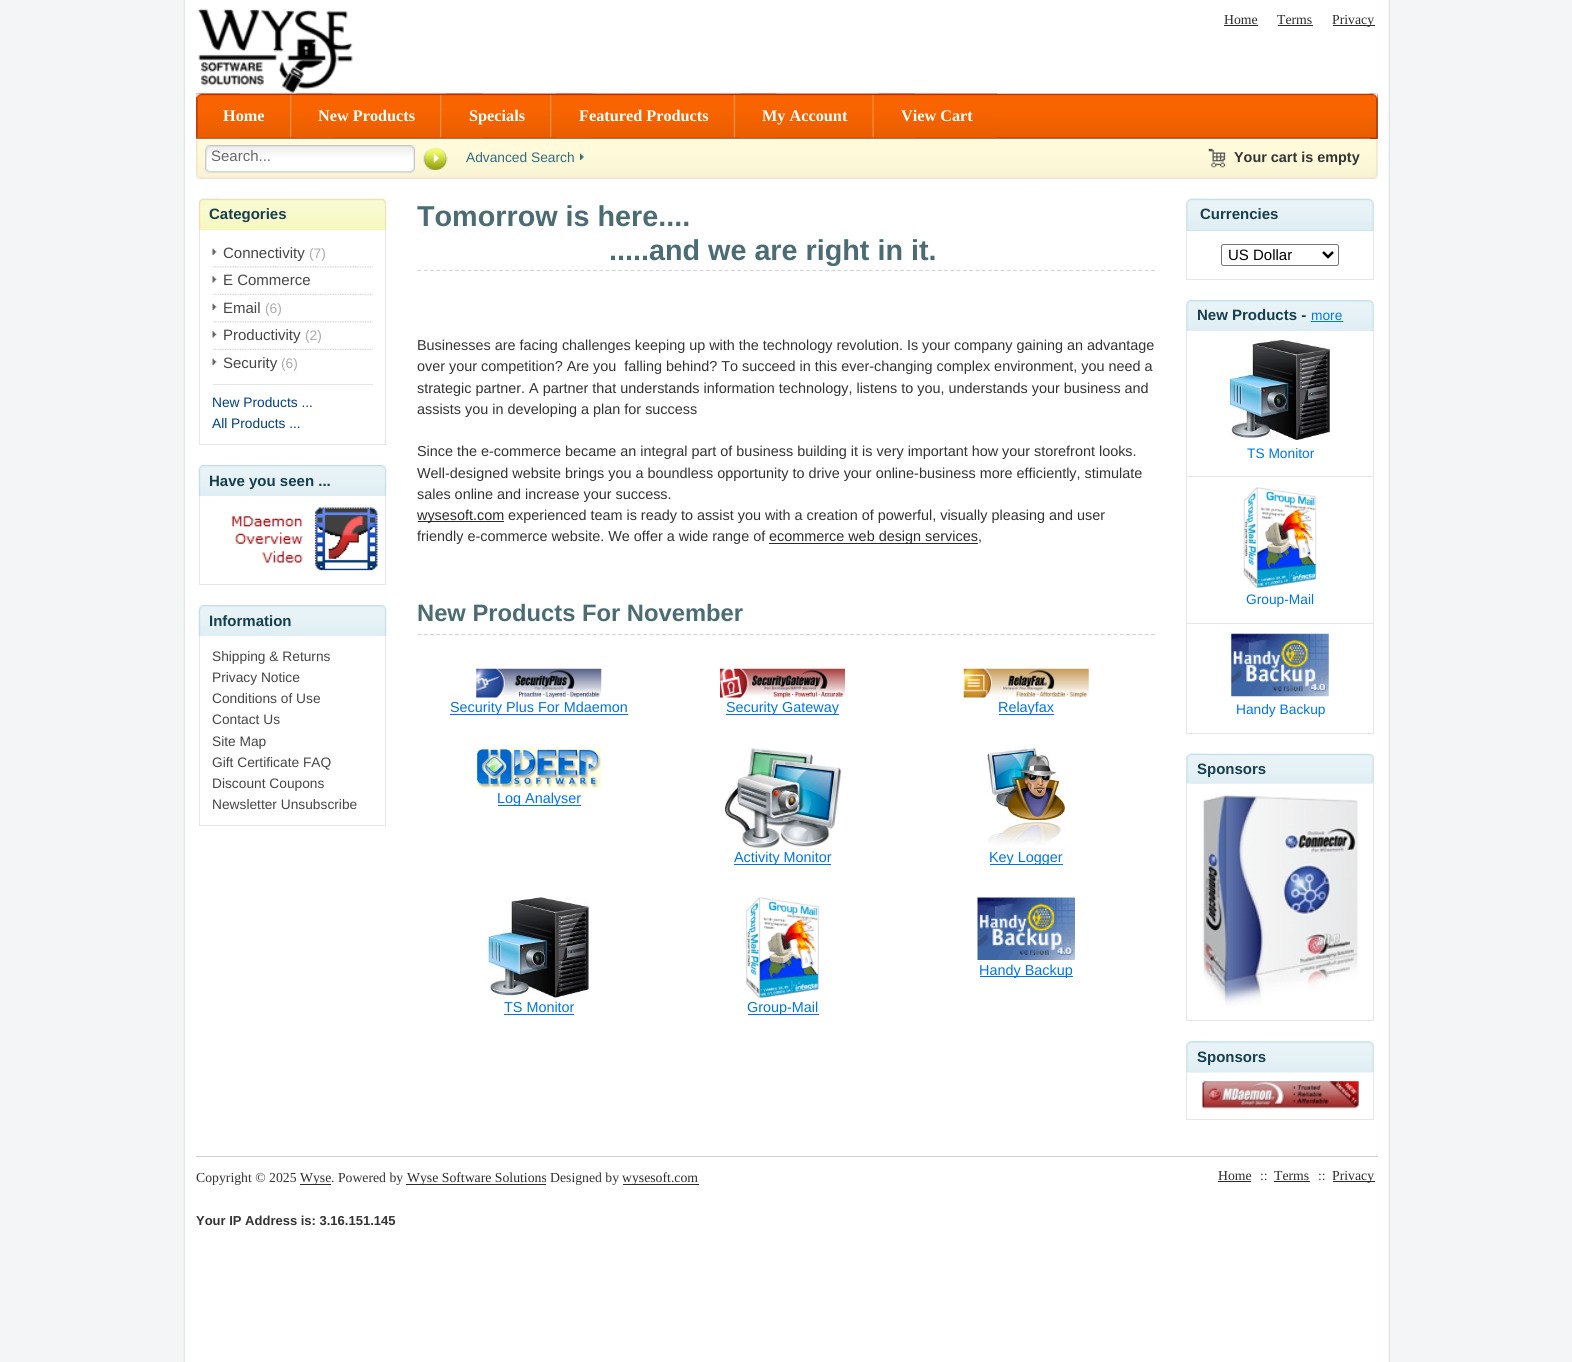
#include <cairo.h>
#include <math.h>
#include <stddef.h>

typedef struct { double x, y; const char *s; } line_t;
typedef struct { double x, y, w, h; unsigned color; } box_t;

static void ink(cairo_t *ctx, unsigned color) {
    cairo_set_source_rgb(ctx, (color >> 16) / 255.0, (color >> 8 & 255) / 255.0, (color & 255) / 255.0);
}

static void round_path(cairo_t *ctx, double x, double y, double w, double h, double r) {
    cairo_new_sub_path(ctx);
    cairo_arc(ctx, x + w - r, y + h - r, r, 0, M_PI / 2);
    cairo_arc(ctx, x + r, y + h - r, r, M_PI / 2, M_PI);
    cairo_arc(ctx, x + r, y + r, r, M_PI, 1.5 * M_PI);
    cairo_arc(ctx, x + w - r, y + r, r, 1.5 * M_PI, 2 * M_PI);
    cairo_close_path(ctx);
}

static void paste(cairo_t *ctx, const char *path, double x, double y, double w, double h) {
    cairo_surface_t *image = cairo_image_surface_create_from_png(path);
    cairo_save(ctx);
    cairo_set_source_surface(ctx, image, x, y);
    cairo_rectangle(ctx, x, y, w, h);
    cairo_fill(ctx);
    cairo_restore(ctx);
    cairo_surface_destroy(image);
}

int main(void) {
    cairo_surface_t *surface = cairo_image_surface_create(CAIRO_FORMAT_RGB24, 1572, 1362);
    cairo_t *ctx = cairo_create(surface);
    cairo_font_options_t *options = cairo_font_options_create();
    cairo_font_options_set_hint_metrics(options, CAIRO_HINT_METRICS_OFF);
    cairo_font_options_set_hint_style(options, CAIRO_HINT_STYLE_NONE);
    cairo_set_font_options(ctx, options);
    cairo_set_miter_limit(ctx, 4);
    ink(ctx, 0xF3F5F6);
    cairo_paint(ctx);
    paste(ctx, "media/1.png", 183, 0, 1207, 1362);
    ink(ctx, 0x00A8D3);
    cairo_rectangle(ctx, 196, 94, 1182, 45);
    cairo_fill(ctx);
    paste(ctx, "media/3.png", 196, 93, 1182, 46);
    paste(ctx, "media/2.png", 198, 8, 155, 86);
    cairo_select_font_face(ctx, "Liberation Serif", CAIRO_FONT_SLANT_NORMAL, CAIRO_FONT_WEIGHT_NORMAL);
    cairo_set_font_size(ctx, 13.75);
    ink(ctx, 0x2B2B2B);
    cairo_move_to(ctx, 1224, 24);
    cairo_show_text(ctx, "Home");
    cairo_rectangle(ctx, 1224, 25, 34, 1);
    cairo_fill(ctx);
    cairo_move_to(ctx, 1277, 24);
    cairo_show_text(ctx, "Terms");
    cairo_rectangle(ctx, 1278, 25, 35, 1);
    cairo_fill(ctx);
    cairo_rectangle(ctx, 1333, 25, 42, 1);
    cairo_fill(ctx);
    cairo_move_to(ctx, 1332, 24);
    cairo_show_text(ctx, "Privacy");
    paste(ctx, "media/4.png", 196, 93, 44, 45);
    paste(ctx, "media/5.png", 196, 93, 94, 45);
    cairo_select_font_face(ctx, "Liberation Serif", CAIRO_FONT_SLANT_NORMAL, CAIRO_FONT_WEIGHT_BOLD);
    cairo_set_font_size(ctx, 16.25);
    ink(ctx, 0xFFFFFF);
    cairo_move_to(ctx, 223, 121);
    cairo_show_text(ctx, "Home");
    paste(ctx, "media/6.png", 290, 93, 43, 45);
    paste(ctx, "media/7.png", 296, 93, 144, 45);
    cairo_move_to(ctx, 318, 121);
    cairo_show_text(ctx, "New Products");
    paste(ctx, "media/8.png", 440, 93, 43, 45);
    paste(ctx, "media/9.png", 446, 93, 104, 45);
    cairo_move_to(ctx, 469, 121);
    cairo_show_text(ctx, "Specials");
    paste(ctx, "media/8.png", 550, 93, 43, 45);
    paste(ctx, "media/10.png", 556, 93, 178, 45);
    cairo_move_to(ctx, 579, 121);
    cairo_show_text(ctx, "Featured Products");
    paste(ctx, "media/11.png", 733, 93, 44, 45);
    paste(ctx, "media/12.png", 740, 93, 133, 45);
    cairo_move_to(ctx, 762, 121);
    cairo_show_text(ctx, "My Account");
    paste(ctx, "media/13.png", 872, 93, 43, 45);
    paste(ctx, "media/14.png", 878, 93, 120, 45);
    cairo_move_to(ctx, 901, 121);
    cairo_show_text(ctx, "View Cart");
    ink(ctx, 0xEDF9FD);
    cairo_rectangle(ctx, 196, 139, 1182, 40);
    cairo_fill(ctx);
    paste(ctx, "media/16.png", 196, 138, 1182, 41);
    paste(ctx, "media/15.png", 1370, 93, 8, 46);
    paste(ctx, "media/17.png", 196, 140, 8, 39);
    paste(ctx, "media/18.png", 205, 145, 210, 28);
    cairo_select_font_face(ctx, "Liberation Sans", CAIRO_FONT_SLANT_NORMAL, CAIRO_FONT_WEIGHT_NORMAL);
    cairo_set_font_size(ctx, 15);
    ink(ctx, 0x696969);
    cairo_move_to(ctx, 211, 161);
    cairo_show_text(ctx, "Search...");
    paste(ctx, "media/19.png", 423, 147, 25, 23);
    cairo_set_font_size(ctx, 13.75);
    ink(ctx, 0x336B7D);
    cairo_move_to(ctx, 466, 162);
    cairo_show_text(ctx, "Advanced Search");
    paste(ctx, "media/20.png", 580, 153, 4, 7);
    paste(ctx, "media/21.png", 1208, 148, 18, 20);
    cairo_select_font_face(ctx, "Liberation Sans", CAIRO_FONT_SLANT_NORMAL, CAIRO_FONT_WEIGHT_BOLD);
    cairo_set_font_size(ctx, 14.4);
    ink(ctx, 0x333333);
    cairo_move_to(ctx, 1234, 162);
    cairo_show_text(ctx, "Your cart is empty");
    paste(ctx, "media/22.png", 1370, 140, 8, 39);
    paste(ctx, "media/23.png", 198, 198, 21, 32);
    paste(ctx, "media/24.png", 202, 198, 185, 32);
    cairo_set_font_size(ctx, 15);
    ink(ctx, 0x163E4D);
    cairo_move_to(ctx, 209, 219);
    cairo_show_text(ctx, "Categories");
    {
        static const box_t items[] = {
            {385, 230, 1, 215, 0xE6E6E6},
            {199, 444, 187, 1, 0xE6E6E6},
            {199, 230, 1, 215, 0xE6E6E6},
        };
        for (size_t i = 0; i < sizeof items / sizeof *items; i++) {
            ink(ctx, items[i].color);
            cairo_rectangle(ctx, items[i].x, items[i].y, items[i].w, items[i].h);
            cairo_fill(ctx);
        }
    }
    paste(ctx, "media/25.png", 212, 248, 5, 7);
    cairo_select_font_face(ctx, "Liberation Sans", CAIRO_FONT_SLANT_NORMAL, CAIRO_FONT_WEIGHT_NORMAL);
    ink(ctx, 0x454545);
    cairo_move_to(ctx, 223, 258);
    cairo_show_text(ctx, "Connectivity");
    cairo_set_font_size(ctx, 13.75);
    ink(ctx, 0xAAAAAA);
    cairo_move_to(ctx, 309, 258);
    cairo_show_text(ctx, "(7)");
    paste(ctx, "media/26.png", 212, 266, 161, 2);
    paste(ctx, "media/27.png", 212, 276, 5, 7);
    cairo_set_font_size(ctx, 15);
    ink(ctx, 0x454545);
    cairo_move_to(ctx, 223, 285);
    cairo_show_text(ctx, "E Commerce");
    paste(ctx, "media/28.png", 212, 293, 161, 2);
    paste(ctx, "media/25.png", 212, 303, 5, 7);
    cairo_move_to(ctx, 223, 313);
    cairo_show_text(ctx, "Email");
    cairo_set_font_size(ctx, 13.75);
    ink(ctx, 0xAAAAAA);
    cairo_move_to(ctx, 265, 313);
    cairo_show_text(ctx, "(6)");
    paste(ctx, "media/26.png", 212, 321, 161, 2);
    paste(ctx, "media/27.png", 212, 331, 5, 7);
    cairo_set_font_size(ctx, 15);
    ink(ctx, 0x454545);
    cairo_move_to(ctx, 223, 340);
    cairo_show_text(ctx, "Productivity");
    cairo_set_font_size(ctx, 13.75);
    ink(ctx, 0xAAAAAA);
    cairo_move_to(ctx, 305, 340);
    cairo_show_text(ctx, "(2)");
    paste(ctx, "media/28.png", 212, 348, 161, 2);
    paste(ctx, "media/25.png", 212, 358, 5, 7);
    cairo_set_font_size(ctx, 15);
    ink(ctx, 0x454545);
    cairo_move_to(ctx, 223, 368);
    cairo_show_text(ctx, "Security");
    cairo_set_font_size(ctx, 13.75);
    ink(ctx, 0xAAAAAA);
    cairo_move_to(ctx, 281, 368);
    cairo_show_text(ctx, "(6)");
    ink(ctx, 0xE4E4E4);
    cairo_rectangle(ctx, 213, 384, 160, 1);
    cairo_fill(ctx);
    ink(ctx, 0x004080);
    cairo_move_to(ctx, 212, 407);
    cairo_show_text(ctx, "New Products ...");
    cairo_move_to(ctx, 212, 428);
    cairo_show_text(ctx, "All Products ...");
    paste(ctx, "media/29.png", 198, 465, 5, 32);
    paste(ctx, "media/30.png", 202, 465, 185, 32);
    cairo_select_font_face(ctx, "Liberation Sans", CAIRO_FONT_SLANT_NORMAL, CAIRO_FONT_WEIGHT_BOLD);
    cairo_set_font_size(ctx, 15);
    ink(ctx, 0x163E4D);
    cairo_move_to(ctx, 209, 486);
    cairo_show_text(ctx, "Have you seen ...");
    {
        static const box_t items[] = {
            {200, 496, 185, 1, 0xFFFFFF},
            {385, 496, 1, 89, 0xE6E6E6},
            {199, 584, 187, 1, 0xE6E6E6},
            {199, 496, 1, 89, 0xE6E6E6},
        };
        for (size_t i = 0; i < sizeof items / sizeof *items; i++) {
            ink(ctx, items[i].color);
            cairo_rectangle(ctx, items[i].x, items[i].y, items[i].w, items[i].h);
            cairo_fill(ctx);
        }
    }
    paste(ctx, "media/31.png", 231, 507, 147, 64);
    paste(ctx, "media/29.png", 198, 605, 5, 32);
    paste(ctx, "media/30.png", 202, 605, 185, 32);
    ink(ctx, 0x163E4D);
    cairo_move_to(ctx, 209, 626);
    cairo_show_text(ctx, "Information");
    {
        static const box_t items[] = {
            {200, 636, 185, 1, 0xFFFFFF},
            {385, 636, 1, 190, 0xE6E6E6},
            {199, 825, 187, 1, 0xE6E6E6},
            {199, 636, 1, 190, 0xE6E6E6},
        };
        for (size_t i = 0; i < sizeof items / sizeof *items; i++) {
            ink(ctx, items[i].color);
            cairo_rectangle(ctx, items[i].x, items[i].y, items[i].w, items[i].h);
            cairo_fill(ctx);
        }
    }
    cairo_select_font_face(ctx, "Liberation Sans", CAIRO_FONT_SLANT_NORMAL, CAIRO_FONT_WEIGHT_NORMAL);
    cairo_set_font_size(ctx, 13.75);
    ink(ctx, 0x454545);
    {
        static const line_t items[] = {
            {212, 661, "Shipping & Returns"},
            {212, 682, "Privacy Notice"},
            {212, 703, "Conditions of Use"},
            {212, 724, "Contact Us"},
            {212, 746, "Site Map"},
            {212, 767, "Gift Certificate FAQ"},
            {212, 788, "Discount Coupons"},
            {212, 809, "Newsletter Unsubscribe"},
        };
        for (size_t i = 0; i < sizeof items / sizeof *items; i++) {
            cairo_move_to(ctx, items[i].x, items[i].y);
            cairo_show_text(ctx, items[i].s);
        }
    }
    cairo_new_path(ctx);
    cairo_move_to(ctx, 417.5, 270.5);
    cairo_line_to(ctx, 1155, 270.5);
    ink(ctx, 0xD5D5D5);
    cairo_set_line_width(ctx, 1.2);
    cairo_set_dash(ctx, (double[]){3.75, 2.52}, 2, 0);
    cairo_stroke(ctx);
    cairo_select_font_face(ctx, "Liberation Sans", CAIRO_FONT_SLANT_NORMAL, CAIRO_FONT_WEIGHT_BOLD);
    cairo_set_font_size(ctx, 28.75);
    ink(ctx, 0x4C6C74);
    cairo_move_to(ctx, 417, 226);
    cairo_show_text(ctx, "Tomorrow is here....");
    cairo_move_to(ctx, 609, 260);
    cairo_show_text(ctx, ".....and we are right in it.");
    cairo_select_font_face(ctx, "Liberation Sans", CAIRO_FONT_SLANT_NORMAL, CAIRO_FONT_WEIGHT_NORMAL);
    cairo_set_font_size(ctx, 14.4);
    ink(ctx, 0x333333);
    {
        static const line_t items[] = {
            {417, 350, "Businesses are facing challenges keeping up with the technology revolution. Is your company gaining an advantage"},
            {417, 371, "over your competition? Are you  falling behind? To succeed in this ever-changing complex environment, you need a"},
            {417, 393, "strategic partner. A partner that understands information technology, listens to you, understands your business and"},
            {417, 414, "assists you in developing a plan for success"},
            {417, 456, "Since the e-commerce became an integral part of business building it is very important how your storefront looks."},
            {417, 478, "Well-designed website brings you a boundless opportunity to drive your online-business more efficiently, stimulate"},
            {417, 499, "sales online and increase your success."},
        };
        for (size_t i = 0; i < sizeof items / sizeof *items; i++) {
            cairo_move_to(ctx, items[i].x, items[i].y);
            cairo_show_text(ctx, items[i].s);
        }
    }
    ink(ctx, 0x2B2B2B);
    cairo_rectangle(ctx, 418, 521, 86, 1);
    cairo_fill(ctx);
    cairo_move_to(ctx, 417, 520);
    cairo_show_text(ctx, "wysesoft.com");
    ink(ctx, 0x333333);
    cairo_move_to(ctx, 508, 520);
    cairo_show_text(ctx, "experienced team is ready to assist you with a creation of powerful, visually pleasing and user");
    cairo_move_to(ctx, 417, 541);
    cairo_show_text(ctx, "friendly e-commerce website. We offer a wide range of");
    ink(ctx, 0x2B2B2B);
    cairo_rectangle(ctx, 769, 543, 209, 1);
    cairo_fill(ctx);
    cairo_move_to(ctx, 769, 541);
    cairo_show_text(ctx, "ecommerce web design services");
    ink(ctx, 0x333333);
    cairo_move_to(ctx, 978, 541);
    cairo_show_text(ctx, ",");
    cairo_new_path(ctx);
    cairo_move_to(ctx, 417.5, 634.5);
    cairo_line_to(ctx, 1155, 634.5);
    ink(ctx, 0xD5D5D5);
    cairo_stroke(ctx);
    cairo_select_font_face(ctx, "Liberation Sans", CAIRO_FONT_SLANT_NORMAL, CAIRO_FONT_WEIGHT_BOLD);
    cairo_set_font_size(ctx, 23.75);
    ink(ctx, 0x4C6C74);
    cairo_move_to(ctx, 417, 621);
    cairo_show_text(ctx, "New Products For November");
    paste(ctx, "media/32.png", 476, 668, 126, 30);
    ink(ctx, 0x0075E2);
    cairo_rectangle(ctx, 450, 714, 178, 1);
    cairo_fill(ctx);
    cairo_select_font_face(ctx, "Liberation Sans", CAIRO_FONT_SLANT_NORMAL, CAIRO_FONT_WEIGHT_NORMAL);
    cairo_set_font_size(ctx, 14.4);
    cairo_move_to(ctx, 450, 712);
    cairo_show_text(ctx, "Security Plus For Mdaemon");
    paste(ctx, "media/33.png", 720, 668, 125, 30);
    cairo_rectangle(ctx, 726, 714, 113, 1);
    cairo_fill(ctx);
    cairo_move_to(ctx, 726, 712);
    cairo_show_text(ctx, "Security Gateway");
    paste(ctx, "media/34.png", 963, 668, 126, 30);
    cairo_rectangle(ctx, 999, 714, 55, 1);
    cairo_fill(ctx);
    cairo_move_to(ctx, 998, 712);
    cairo_show_text(ctx, "Relayfax");
    paste(ctx, "media/35.png", 476, 747, 126, 42);
    cairo_rectangle(ctx, 498, 805, 83, 1);
    cairo_fill(ctx);
    cairo_move_to(ctx, 497, 803);
    cairo_show_text(ctx, "Log Analyser");
    paste(ctx, "media/36.png", 725, 748, 117, 100);
    cairo_rectangle(ctx, 734, 864, 97, 1);
    cairo_fill(ctx);
    cairo_move_to(ctx, 734, 862);
    cairo_show_text(ctx, "Activity Monitor");
    paste(ctx, "media/37.png", 987, 747, 78, 98);
    cairo_rectangle(ctx, 990, 864, 73, 1);
    cairo_fill(ctx);
    cairo_move_to(ctx, 989, 862);
    cairo_show_text(ctx, "Key Logger");
    paste(ctx, "media/38.png", 977, 897, 98, 63);
    cairo_rectangle(ctx, 980, 976, 93, 1);
    cairo_fill(ctx);
    cairo_move_to(ctx, 979, 975);
    cairo_show_text(ctx, "Handy Backup");
    paste(ctx, "media/39.png", 488, 897, 101, 101);
    cairo_move_to(ctx, 504, 1012);
    cairo_show_text(ctx, "TS Monitor");
    cairo_rectangle(ctx, 504, 1014, 70, 1);
    cairo_fill(ctx);
    paste(ctx, "media/40.png", 746, 897, 73, 101);
    cairo_rectangle(ctx, 748, 1014, 71, 1);
    cairo_fill(ctx);
    cairo_move_to(ctx, 747, 1012);
    cairo_show_text(ctx, "Group-Mail");
    paste(ctx, "media/41.png", 1186, 198, 22, 33);
    paste(ctx, "media/42.png", 1191, 198, 183, 33);
    cairo_select_font_face(ctx, "Liberation Sans", CAIRO_FONT_SLANT_NORMAL, CAIRO_FONT_WEIGHT_BOLD);
    cairo_set_font_size(ctx, 15);
    ink(ctx, 0x163E4D);
    cairo_move_to(ctx, 1200, 219);
    cairo_show_text(ctx, "Currencies");
    {
        static const box_t items[] = {
            {1373, 231, 1, 49, 0xE6E6E6},
            {1186, 279, 188, 1, 0xE6E6E6},
            {1186, 231, 1, 49, 0xE6E6E6},
        };
        for (size_t i = 0; i < sizeof items / sizeof *items; i++) {
            ink(ctx, items[i].color);
            cairo_rectangle(ctx, items[i].x, items[i].y, items[i].w, items[i].h);
            cairo_fill(ctx);
        }
    }
    round_path(ctx, 1221.5, 244.5, 117, 21, 2);
    ink(ctx, 0x767676);
    cairo_set_line_width(ctx, 1);
    cairo_set_dash(ctx, NULL, 0, 0);
    cairo_stroke(ctx);
    cairo_new_path(ctx);
    cairo_move_to(ctx, 1323, 252);
    cairo_line_to(ctx, 1328, 257);
    cairo_line_to(ctx, 1333, 252);
    ink(ctx, 0x000000);
    cairo_set_line_width(ctx, 2.5);
    cairo_stroke(ctx);
    cairo_select_font_face(ctx, "Liberation Sans", CAIRO_FONT_SLANT_NORMAL, CAIRO_FONT_WEIGHT_NORMAL);
    cairo_move_to(ctx, 1228, 260);
    cairo_show_text(ctx, "US Dollar");
    paste(ctx, "media/43.png", 1186, 300, 6, 31);
    paste(ctx, "media/44.png", 1191, 300, 183, 31);
    cairo_select_font_face(ctx, "Liberation Sans", CAIRO_FONT_SLANT_NORMAL, CAIRO_FONT_WEIGHT_BOLD);
    ink(ctx, 0x163E4D);
    cairo_move_to(ctx, 1197, 320);
    cairo_show_text(ctx, "New Products -");
    cairo_select_font_face(ctx, "Liberation Sans", CAIRO_FONT_SLANT_NORMAL, CAIRO_FONT_WEIGHT_NORMAL);
    cairo_set_font_size(ctx, 13.75);
    ink(ctx, 0x0078E8);
    cairo_move_to(ctx, 1311, 320);
    cairo_show_text(ctx, "more");
    {
        static const box_t items[] = {
            {1311, 321, 32, 1, 0x0078E8},
            {1373, 331, 1, 403, 0xE6E6E6},
            {1186, 476, 188, 1, 0xE6E6E6},
            {1186, 331, 1, 147, 0xE6E6E6},
        };
        for (size_t i = 0; i < sizeof items / sizeof *items; i++) {
            ink(ctx, items[i].color);
            cairo_rectangle(ctx, items[i].x, items[i].y, items[i].w, items[i].h);
            cairo_fill(ctx);
        }
    }
    paste(ctx, "media/45.png", 1230, 340, 100, 100);
    ink(ctx, 0x0075E2);
    cairo_move_to(ctx, 1247, 458);
    cairo_show_text(ctx, "TS Monitor");
    ink(ctx, 0xE6E6E6);
    cairo_rectangle(ctx, 1186, 623, 188, 1);
    cairo_fill(ctx);
    cairo_rectangle(ctx, 1186, 478, 1, 146);
    cairo_fill(ctx);
    paste(ctx, "media/46.png", 1243, 487, 74, 101);
    ink(ctx, 0x0075E2);
    cairo_move_to(ctx, 1246, 604);
    cairo_show_text(ctx, "Group-Mail");
    ink(ctx, 0xE6E6E6);
    cairo_rectangle(ctx, 1186, 733, 188, 1);
    cairo_fill(ctx);
    cairo_rectangle(ctx, 1186, 624, 1, 110);
    cairo_fill(ctx);
    paste(ctx, "media/47.png", 1231, 633, 98, 64);
    ink(ctx, 0x0075E2);
    cairo_move_to(ctx, 1236, 714);
    cairo_show_text(ctx, "Handy Backup");
    paste(ctx, "media/48.png", 1186, 753, 22, 31);
    paste(ctx, "media/49.png", 1191, 753, 183, 31);
    cairo_select_font_face(ctx, "Liberation Sans", CAIRO_FONT_SLANT_NORMAL, CAIRO_FONT_WEIGHT_BOLD);
    cairo_set_font_size(ctx, 15);
    ink(ctx, 0x163E4D);
    cairo_move_to(ctx, 1197, 774);
    cairo_show_text(ctx, "Sponsors");
    {
        static const box_t items[] = {
            {1373, 784, 1, 237, 0xE6E6E6},
            {1186, 1020, 188, 1, 0xE6E6E6},
            {1186, 784, 1, 237, 0xE6E6E6},
        };
        for (size_t i = 0; i < sizeof items / sizeof *items; i++) {
            ink(ctx, items[i].color);
            cairo_rectangle(ctx, items[i].x, items[i].y, items[i].w, items[i].h);
            cairo_fill(ctx);
        }
    }
    paste(ctx, "media/50.png", 1202, 795, 157, 211);
    paste(ctx, "media/51.png", 1186, 1041, 22, 32);
    paste(ctx, "media/52.png", 1191, 1041, 183, 32);
    ink(ctx, 0x163E4D);
    cairo_move_to(ctx, 1197, 1062);
    cairo_show_text(ctx, "Sponsors");
    {
        static const box_t items[] = {
            {1373, 1073, 1, 47, 0xE6E6E6},
            {1186, 1119, 188, 1, 0xE6E6E6},
            {1186, 1073, 1, 47, 0xE6E6E6},
        };
        for (size_t i = 0; i < sizeof items / sizeof *items; i++) {
            ink(ctx, items[i].color);
            cairo_rectangle(ctx, items[i].x, items[i].y, items[i].w, items[i].h);
            cairo_fill(ctx);
        }
    }
    paste(ctx, "media/53.png", 1202, 1081, 157, 28);
    ink(ctx, 0xCECECE);
    cairo_rectangle(ctx, 196, 1156, 1182, 1);
    cairo_fill(ctx);
    cairo_select_font_face(ctx, "Liberation Serif", CAIRO_FONT_SLANT_NORMAL, CAIRO_FONT_WEIGHT_NORMAL);
    cairo_set_font_size(ctx, 13.75);
    ink(ctx, 0x333333);
    cairo_move_to(ctx, 196, 1182);
    cairo_show_text(ctx, "Copyright © 2025");
    ink(ctx, 0x2B2B2B);
    cairo_rectangle(ctx, 300, 1184, 31, 1);
    cairo_fill(ctx);
    cairo_move_to(ctx, 300, 1182);
    cairo_show_text(ctx, "Wyse");
    ink(ctx, 0x333333);
    cairo_move_to(ctx, 331, 1182);
    cairo_show_text(ctx, ". Powered by");
    ink(ctx, 0x2B2B2B);
    cairo_rectangle(ctx, 406, 1184, 140, 1);
    cairo_fill(ctx);
    cairo_move_to(ctx, 407, 1182);
    cairo_show_text(ctx, "Wyse Software Solutions");
    ink(ctx, 0x333333);
    cairo_move_to(ctx, 550, 1182);
    cairo_show_text(ctx, "Designed by");
    ink(ctx, 0x2B2B2B);
    cairo_rectangle(ctx, 623, 1184, 76, 1);
    cairo_fill(ctx);
    cairo_move_to(ctx, 622, 1182);
    cairo_show_text(ctx, "wysesoft.com");
    cairo_move_to(ctx, 1218, 1180);
    cairo_show_text(ctx, "Home");
    cairo_rectangle(ctx, 1218, 1181, 33, 1);
    cairo_fill(ctx);
    ink(ctx, 0x333333);
    cairo_move_to(ctx, 1260, 1180);
    cairo_show_text(ctx, "::");
    ink(ctx, 0x2B2B2B);
    cairo_move_to(ctx, 1274, 1180);
    cairo_show_text(ctx, "Terms");
    cairo_rectangle(ctx, 1274, 1181, 36, 1);
    cairo_fill(ctx);
    ink(ctx, 0x333333);
    cairo_move_to(ctx, 1318, 1180);
    cairo_show_text(ctx, "::");
    ink(ctx, 0x2B2B2B);
    cairo_rectangle(ctx, 1333, 1181, 42, 1);
    cairo_fill(ctx);
    cairo_move_to(ctx, 1332, 1180);
    cairo_show_text(ctx, "Privacy");
    cairo_select_font_face(ctx, "Liberation Sans", CAIRO_FONT_SLANT_NORMAL, CAIRO_FONT_WEIGHT_BOLD);
    cairo_set_font_size(ctx, 13);
    ink(ctx, 0x333333);
    cairo_move_to(ctx, 196, 1225);
    cairo_show_text(ctx, "Your IP Address is: 3.16.151.145");
    cairo_surface_write_to_png(surface, "image.png");
    cairo_font_options_destroy(options);
    cairo_destroy(ctx);
    cairo_surface_destroy(surface);
    return 0;
}
